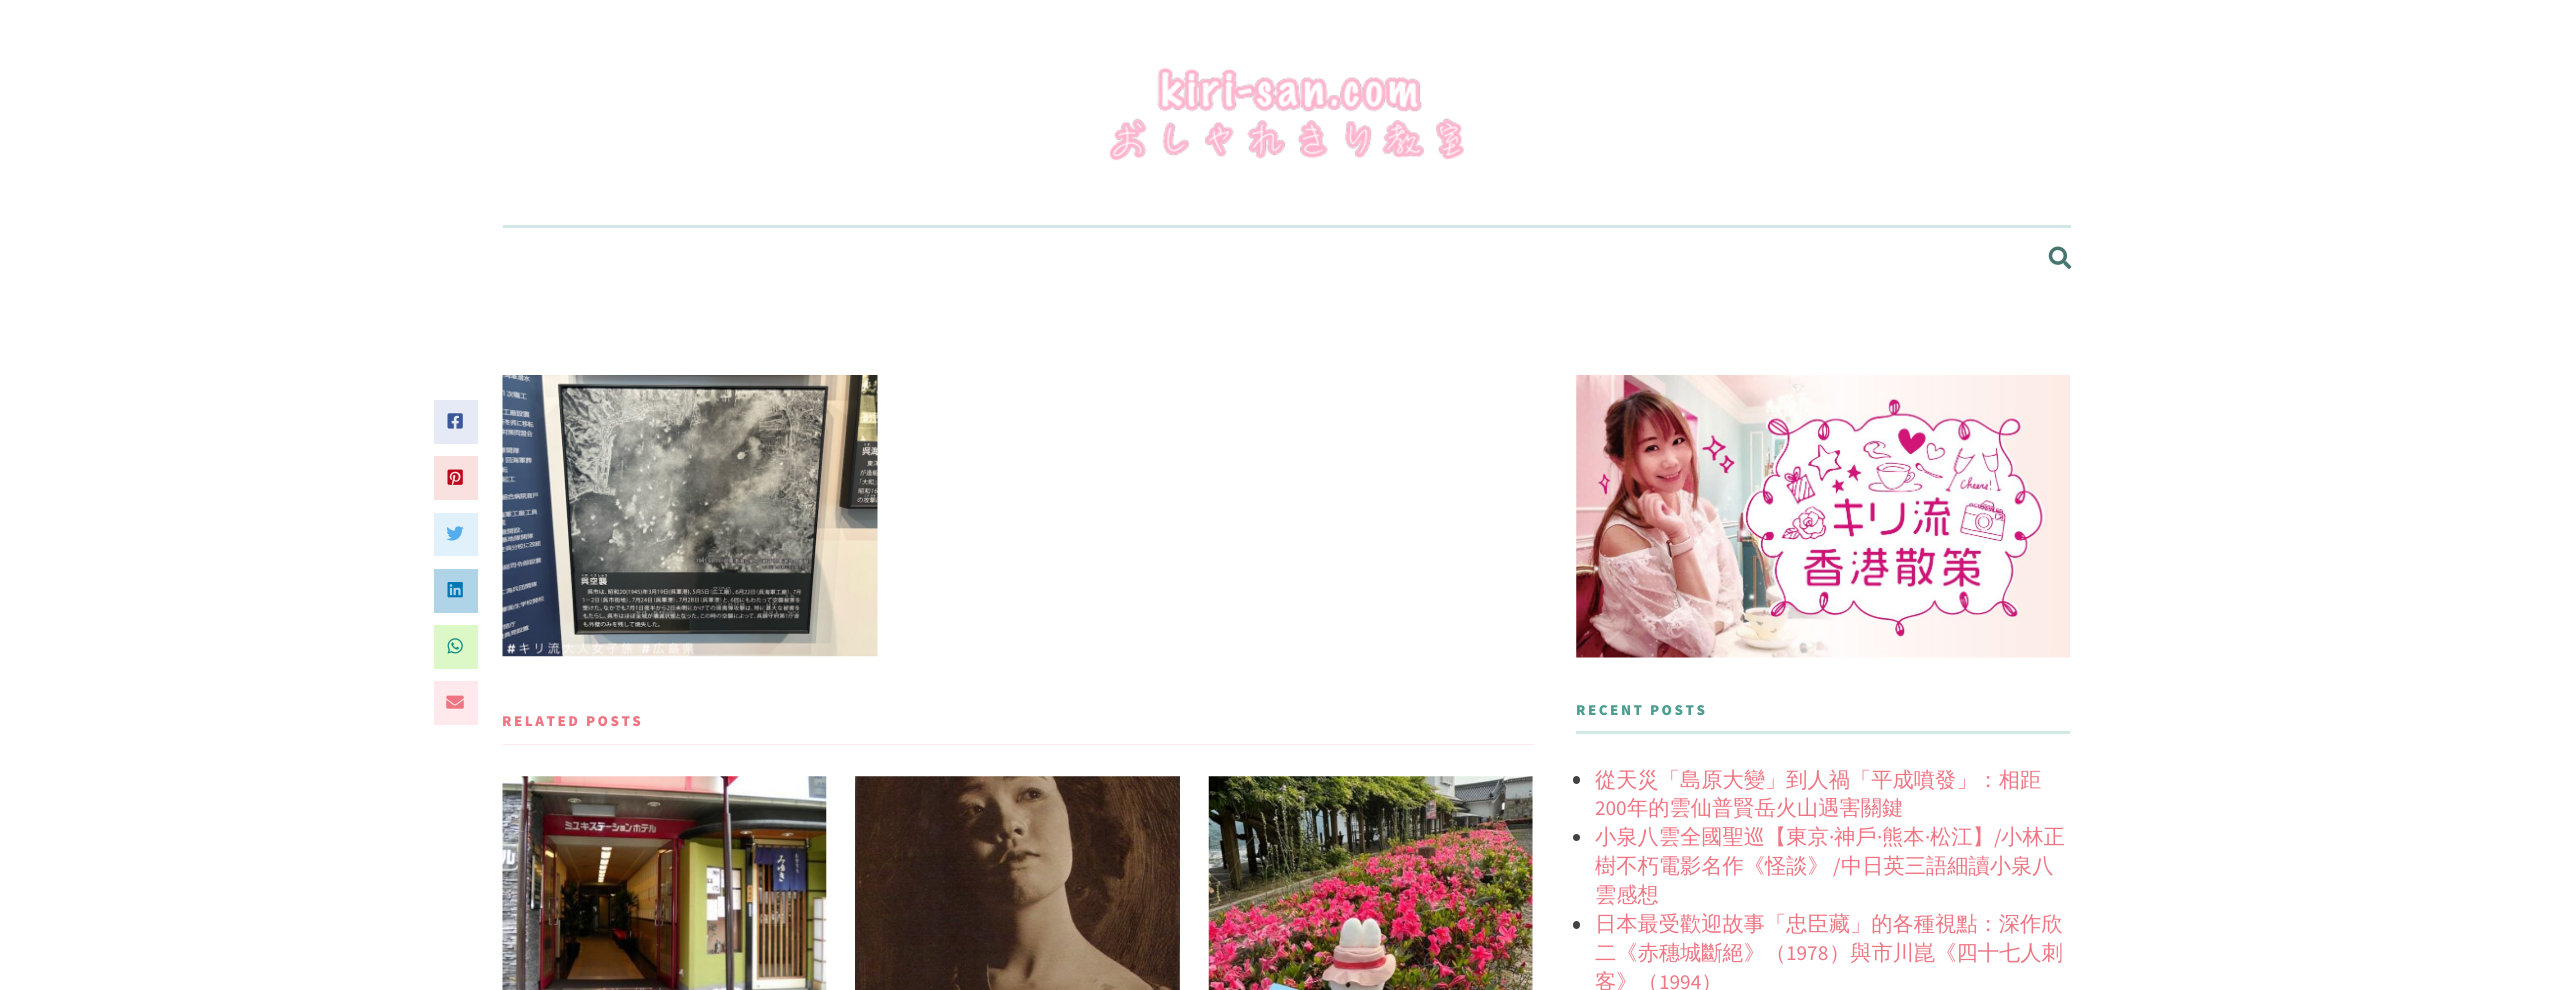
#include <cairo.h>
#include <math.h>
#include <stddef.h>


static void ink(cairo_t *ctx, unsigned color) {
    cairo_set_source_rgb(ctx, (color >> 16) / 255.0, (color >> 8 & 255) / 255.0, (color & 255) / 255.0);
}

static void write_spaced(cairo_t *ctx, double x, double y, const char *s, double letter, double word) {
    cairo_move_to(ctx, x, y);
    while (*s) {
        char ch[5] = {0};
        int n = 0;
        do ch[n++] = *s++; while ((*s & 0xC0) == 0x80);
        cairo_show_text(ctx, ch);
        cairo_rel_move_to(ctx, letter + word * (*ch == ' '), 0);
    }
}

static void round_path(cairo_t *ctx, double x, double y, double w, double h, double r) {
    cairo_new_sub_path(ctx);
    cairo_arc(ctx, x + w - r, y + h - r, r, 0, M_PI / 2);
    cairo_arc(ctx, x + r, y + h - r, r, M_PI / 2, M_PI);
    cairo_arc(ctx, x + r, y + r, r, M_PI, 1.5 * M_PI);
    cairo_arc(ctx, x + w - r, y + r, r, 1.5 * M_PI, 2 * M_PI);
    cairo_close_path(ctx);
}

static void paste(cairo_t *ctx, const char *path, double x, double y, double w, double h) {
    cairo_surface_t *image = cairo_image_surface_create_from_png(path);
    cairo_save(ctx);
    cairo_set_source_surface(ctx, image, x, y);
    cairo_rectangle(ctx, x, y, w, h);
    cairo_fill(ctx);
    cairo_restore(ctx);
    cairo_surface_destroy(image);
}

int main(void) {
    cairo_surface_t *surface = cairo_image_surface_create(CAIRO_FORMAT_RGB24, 2572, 990);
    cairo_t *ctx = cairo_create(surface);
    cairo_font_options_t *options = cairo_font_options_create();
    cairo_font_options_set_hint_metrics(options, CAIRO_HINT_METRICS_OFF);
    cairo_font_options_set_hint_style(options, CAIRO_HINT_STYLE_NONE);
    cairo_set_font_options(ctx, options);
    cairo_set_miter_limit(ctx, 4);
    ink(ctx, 0xFFFFFF);
    cairo_paint(ctx);
    paste(ctx, "media/1.png", 1109, 67, 355, 94);
    ink(ctx, 0xD0E9E6);
    cairo_rectangle(ctx, 503, 225, 1568, 3);
    cairo_fill(ctx);
    paste(ctx, "media/2.png", 2048, 246, 24, 23);
    ink(ctx, 0xE6EAF6);
    cairo_rectangle(ctx, 434, 400, 44, 44);
    cairo_fill(ctx);
    paste(ctx, "media/3.png", 447, 413, 16, 16);
    ink(ctx, 0xF9E1E0);
    cairo_rectangle(ctx, 434, 456, 44, 44);
    cairo_fill(ctx);
    paste(ctx, "media/4.png", 447, 469, 16, 16);
    ink(ctx, 0xE1F1FC);
    cairo_rectangle(ctx, 434, 513, 44, 43);
    cairo_fill(ctx);
    paste(ctx, "media/5.png", 446, 526, 18, 15);
    ink(ctx, 0xB0D4E7);
    cairo_rectangle(ctx, 434, 569, 44, 44);
    cairo_fill(ctx);
    paste(ctx, "media/6.png", 447, 582, 16, 16);
    ink(ctx, 0xDCF8C6);
    cairo_rectangle(ctx, 434, 625, 44, 44);
    cairo_fill(ctx);
    paste(ctx, "media/7.png", 447, 638, 16, 16);
    ink(ctx, 0xFFE9EC);
    cairo_rectangle(ctx, 434, 681, 44, 44);
    cairo_fill(ctx);
    paste(ctx, "media/8.png", 446, 695, 18, 14);
    paste(ctx, "media/9.png", 502, 375, 376, 282);
    cairo_rectangle(ctx, 503, 744, 1031, 1);
    cairo_fill(ctx);
    cairo_select_font_face(ctx, "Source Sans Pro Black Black", CAIRO_FONT_SLANT_NORMAL, CAIRO_FONT_WEIGHT_NORMAL);
    cairo_set_font_size(ctx, 15);
    ink(ctx, 0xEF7583);
    write_spaced(ctx, 502, 726, "RELATED POSTS", 2.5, 0);
    paste(ctx, "media/10.png", 502, 776, 325, 214);
    paste(ctx, "media/11.png", 855, 776, 325, 214);
    paste(ctx, "media/12.png", 1208, 776, 325, 214);
    paste(ctx, "media/13.png", 1576, 375, 494, 283);
    ink(ctx, 0xD0E9E6);
    cairo_rectangle(ctx, 1576, 731, 494, 3);
    cairo_fill(ctx);
    ink(ctx, 0x4D9E91);
    write_spaced(ctx, 1576, 715, "RECENT POSTS", 2.5, 0);
    ink(ctx, 0x424242);
    round_path(ctx, 1573, 776, 7, 8, 3.5);
    cairo_fill(ctx);
    cairo_select_font_face(ctx, "WenQuanYi Zen Hei Medium", CAIRO_FONT_SLANT_NORMAL, CAIRO_FONT_WEIGHT_NORMAL);
    cairo_set_font_size(ctx, 21.25);
    ink(ctx, 0xEF7583);
    cairo_move_to(ctx, 1595, 787);
    cairo_show_text(ctx, "從天災「島原大變」到人禍「平成噴發」：相距");
    cairo_select_font_face(ctx, "Source Sans Pro", CAIRO_FONT_SLANT_NORMAL, CAIRO_FONT_WEIGHT_NORMAL);
    cairo_move_to(ctx, 1595, 815);
    cairo_show_text(ctx, "200");
    cairo_select_font_face(ctx, "WenQuanYi Zen Hei Medium", CAIRO_FONT_SLANT_NORMAL, CAIRO_FONT_WEIGHT_NORMAL);
    cairo_move_to(ctx, 1627, 815);
    cairo_show_text(ctx, "年的雲仙普賢岳火山遇害關鍵");
    ink(ctx, 0x424242);
    cairo_new_path(ctx);
    cairo_arc(ctx, 1576.5, 837.5, 3.5, 0, 2 * M_PI);
    cairo_fill(ctx);
    ink(ctx, 0xEF7583);
    cairo_move_to(ctx, 1595, 844);
    cairo_show_text(ctx, "小泉八雲全國聖巡【東京");
    cairo_select_font_face(ctx, "Source Sans Pro", CAIRO_FONT_SLANT_NORMAL, CAIRO_FONT_WEIGHT_NORMAL);
    cairo_move_to(ctx, 1829, 844);
    cairo_show_text(ctx, "·");
    cairo_select_font_face(ctx, "WenQuanYi Zen Hei Medium", CAIRO_FONT_SLANT_NORMAL, CAIRO_FONT_WEIGHT_NORMAL);
    cairo_move_to(ctx, 1834, 844);
    cairo_show_text(ctx, "神戶");
    cairo_select_font_face(ctx, "Source Sans Pro", CAIRO_FONT_SLANT_NORMAL, CAIRO_FONT_WEIGHT_NORMAL);
    cairo_move_to(ctx, 1877, 844);
    cairo_show_text(ctx, "·");
    cairo_select_font_face(ctx, "WenQuanYi Zen Hei Medium", CAIRO_FONT_SLANT_NORMAL, CAIRO_FONT_WEIGHT_NORMAL);
    cairo_move_to(ctx, 1882, 844);
    cairo_show_text(ctx, "熊本");
    cairo_select_font_face(ctx, "Source Sans Pro", CAIRO_FONT_SLANT_NORMAL, CAIRO_FONT_WEIGHT_NORMAL);
    cairo_move_to(ctx, 1925, 844);
    cairo_show_text(ctx, "·");
    cairo_select_font_face(ctx, "WenQuanYi Zen Hei Medium", CAIRO_FONT_SLANT_NORMAL, CAIRO_FONT_WEIGHT_NORMAL);
    cairo_move_to(ctx, 1930, 844);
    cairo_show_text(ctx, "松江】");
    cairo_select_font_face(ctx, "Source Sans Pro", CAIRO_FONT_SLANT_NORMAL, CAIRO_FONT_WEIGHT_NORMAL);
    cairo_move_to(ctx, 1994, 844);
    cairo_show_text(ctx, "/");
    cairo_select_font_face(ctx, "WenQuanYi Zen Hei Medium", CAIRO_FONT_SLANT_NORMAL, CAIRO_FONT_WEIGHT_NORMAL);
    cairo_move_to(ctx, 2001, 844);
    cairo_show_text(ctx, "小林正");
    cairo_move_to(ctx, 1595, 873);
    cairo_show_text(ctx, "樹不朽電影名作《怪談》");
    cairo_select_font_face(ctx, "Source Sans Pro", CAIRO_FONT_SLANT_NORMAL, CAIRO_FONT_WEIGHT_NORMAL);
    cairo_move_to(ctx, 1833, 873);
    cairo_show_text(ctx, "/");
    cairo_select_font_face(ctx, "WenQuanYi Zen Hei Medium", CAIRO_FONT_SLANT_NORMAL, CAIRO_FONT_WEIGHT_NORMAL);
    cairo_move_to(ctx, 1841, 873);
    cairo_show_text(ctx, "中日英三語細讀小泉八");
    cairo_move_to(ctx, 1595, 902);
    cairo_show_text(ctx, "雲感想");
    ink(ctx, 0x424242);
    round_path(ctx, 1573, 921, 7, 8, 3.5);
    cairo_fill(ctx);
    ink(ctx, 0xEF7583);
    cairo_move_to(ctx, 1595, 931);
    cairo_show_text(ctx, "日本最受歡迎故事「忠臣藏」的各種視點：深作欣");
    cairo_move_to(ctx, 1595, 960);
    cairo_show_text(ctx, "二《赤穗城斷絕》（");
    cairo_select_font_face(ctx, "Source Sans Pro", CAIRO_FONT_SLANT_NORMAL, CAIRO_FONT_WEIGHT_NORMAL);
    cairo_move_to(ctx, 1786, 960);
    cairo_show_text(ctx, "1978");
    cairo_select_font_face(ctx, "WenQuanYi Zen Hei Medium", CAIRO_FONT_SLANT_NORMAL, CAIRO_FONT_WEIGHT_NORMAL);
    cairo_move_to(ctx, 1829, 960);
    cairo_show_text(ctx, "）與市川崑《四十七人刺");
    cairo_move_to(ctx, 1595, 989);
    cairo_show_text(ctx, "客》（");
    cairo_select_font_face(ctx, "Source Sans Pro", CAIRO_FONT_SLANT_NORMAL, CAIRO_FONT_WEIGHT_NORMAL);
    cairo_move_to(ctx, 1659, 989);
    cairo_show_text(ctx, "1994");
    cairo_select_font_face(ctx, "WenQuanYi Zen Hei Medium", CAIRO_FONT_SLANT_NORMAL, CAIRO_FONT_WEIGHT_NORMAL);
    cairo_move_to(ctx, 1701, 989);
    cairo_show_text(ctx, "）");
    cairo_surface_write_to_png(surface, "image.png");
    cairo_font_options_destroy(options);
    cairo_destroy(ctx);
    cairo_surface_destroy(surface);
    return 0;
}
